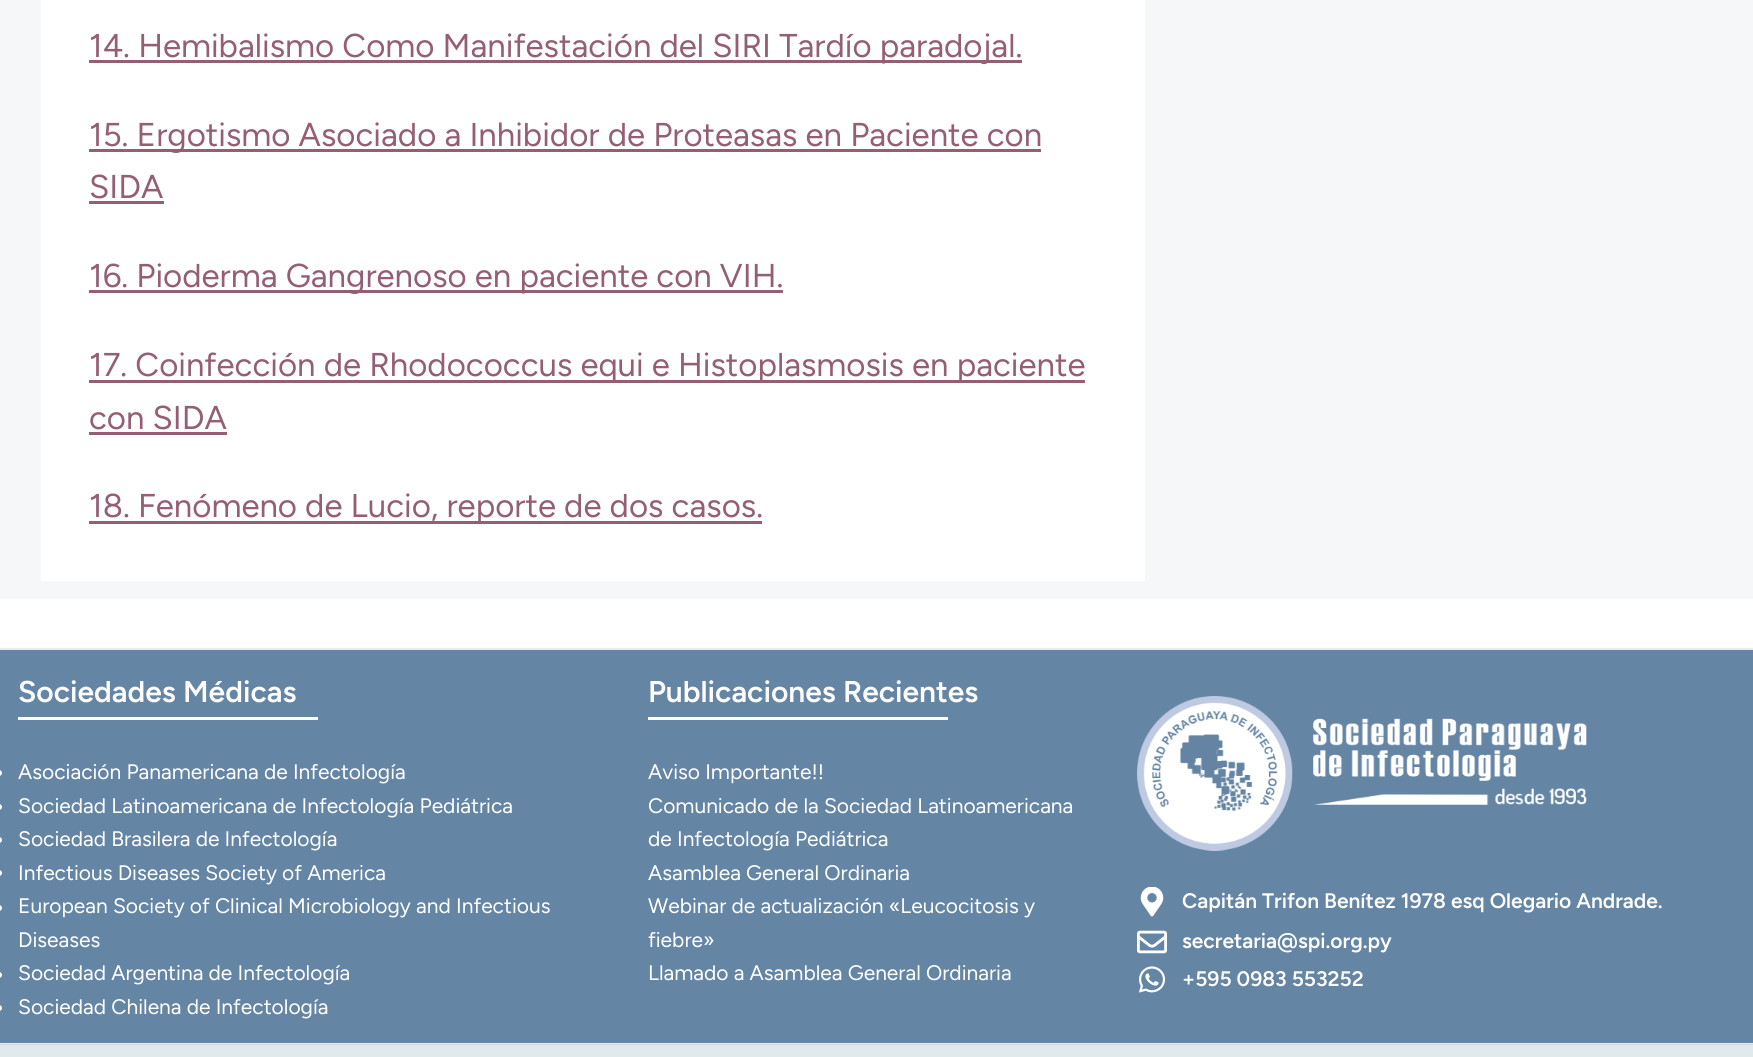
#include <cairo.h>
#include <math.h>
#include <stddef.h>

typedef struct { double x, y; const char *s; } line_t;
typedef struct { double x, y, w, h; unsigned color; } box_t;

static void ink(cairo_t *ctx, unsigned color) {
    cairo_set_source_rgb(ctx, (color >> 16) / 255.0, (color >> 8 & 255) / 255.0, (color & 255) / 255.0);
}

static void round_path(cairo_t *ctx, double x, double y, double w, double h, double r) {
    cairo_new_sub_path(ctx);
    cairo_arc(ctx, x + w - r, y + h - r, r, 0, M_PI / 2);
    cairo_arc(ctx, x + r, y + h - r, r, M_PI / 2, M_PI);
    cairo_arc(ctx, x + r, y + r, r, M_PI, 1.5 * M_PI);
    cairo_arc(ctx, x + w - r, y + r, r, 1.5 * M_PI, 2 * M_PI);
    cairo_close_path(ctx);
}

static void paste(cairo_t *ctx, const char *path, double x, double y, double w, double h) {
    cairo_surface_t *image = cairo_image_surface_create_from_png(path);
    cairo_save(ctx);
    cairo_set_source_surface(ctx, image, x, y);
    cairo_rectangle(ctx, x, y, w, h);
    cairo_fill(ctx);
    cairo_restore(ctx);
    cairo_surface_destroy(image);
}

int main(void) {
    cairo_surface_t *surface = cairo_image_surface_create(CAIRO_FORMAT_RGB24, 1753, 1057);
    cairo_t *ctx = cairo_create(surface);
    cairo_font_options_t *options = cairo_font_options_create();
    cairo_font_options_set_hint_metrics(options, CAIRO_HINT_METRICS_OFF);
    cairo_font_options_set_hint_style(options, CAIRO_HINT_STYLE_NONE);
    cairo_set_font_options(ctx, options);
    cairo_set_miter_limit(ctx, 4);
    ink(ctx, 0xFFFFFF);
    cairo_paint(ctx);
    {
        static const box_t items[] = {
            {0, 1043, 1753, 1, 0xEBEBEB},
            {0, 0, 1753, 599, 0xF6F7F8},
            {41, 0, 1104, 581, 0xFFFFFF},
            {89, 60, 933, 3, 0x945E75},
        };
        for (size_t i = 0; i < sizeof items / sizeof *items; i++) {
            ink(ctx, items[i].color);
            cairo_rectangle(ctx, items[i].x, items[i].y, items[i].w, items[i].h);
            cairo_fill(ctx);
        }
    }
    cairo_select_font_face(ctx, "Figtree", CAIRO_FONT_SLANT_NORMAL, CAIRO_FONT_WEIGHT_NORMAL);
    cairo_set_font_size(ctx, 33);
    cairo_move_to(ctx, 89, 57);
    cairo_show_text(ctx, "14. Hemibalismo Como Manifestación del SIRI Tardío paradojal.");
    cairo_rectangle(ctx, 89, 149, 952, 3);
    cairo_fill(ctx);
    cairo_move_to(ctx, 89, 146);
    cairo_show_text(ctx, "15. Ergotismo Asociado a Inhibidor de Proteasas en Paciente con");
    cairo_move_to(ctx, 89, 198);
    cairo_show_text(ctx, "SIDA");
    cairo_rectangle(ctx, 89, 201, 75, 3);
    cairo_fill(ctx);
    cairo_rectangle(ctx, 89, 290, 694, 3);
    cairo_fill(ctx);
    cairo_move_to(ctx, 89, 287);
    cairo_show_text(ctx, "16. Pioderma Gangrenoso en paciente con VIH.");
    cairo_rectangle(ctx, 89, 380, 996, 3);
    cairo_fill(ctx);
    cairo_move_to(ctx, 89, 376);
    cairo_show_text(ctx, "17. Coinfección de Rhodococcus equi e Histoplasmosis en paciente");
    cairo_move_to(ctx, 89, 429);
    cairo_show_text(ctx, "con SIDA");
    cairo_rectangle(ctx, 89, 432, 138, 3);
    cairo_fill(ctx);
    cairo_rectangle(ctx, 89, 521, 673, 3);
    cairo_fill(ctx);
    cairo_move_to(ctx, 89, 517);
    cairo_show_text(ctx, "18. Fenómeno de Lucio, reporte de dos casos.");
    ink(ctx, 0xEBEBEB);
    cairo_rectangle(ctx, 0, 648, 1753, 2);
    cairo_fill(ctx);
    ink(ctx, 0x6585A5);
    cairo_rectangle(ctx, 0, 650, 1753, 393);
    cairo_fill(ctx);
    cairo_select_font_face(ctx, "Figtree SemiBold", CAIRO_FONT_SLANT_NORMAL, CAIRO_FONT_WEIGHT_NORMAL);
    cairo_set_font_size(ctx, 30);
    ink(ctx, 0xFFFFFF);
    cairo_move_to(ctx, 18, 702);
    cairo_show_text(ctx, "Sociedades Médicas");
    cairo_rectangle(ctx, 18, 717, 300, 3);
    cairo_fill(ctx);
    round_path(ctx, -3, 770, 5, 6, 3);
    cairo_fill(ctx);
    cairo_select_font_face(ctx, "Figtree", CAIRO_FONT_SLANT_NORMAL, CAIRO_FONT_WEIGHT_NORMAL);
    cairo_set_font_size(ctx, 21);
    cairo_move_to(ctx, 18, 779);
    cairo_show_text(ctx, "Asociación Panamericana de Infectología");
    round_path(ctx, -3, 804, 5, 6, 3);
    cairo_fill(ctx);
    cairo_move_to(ctx, 18, 813);
    cairo_show_text(ctx, "Sociedad Latinoamericana de Infectología Pediátrica");
    round_path(ctx, -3, 837, 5, 6, 3);
    cairo_fill(ctx);
    cairo_move_to(ctx, 18, 846);
    cairo_show_text(ctx, "Sociedad Brasilera de Infectología");
    round_path(ctx, -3, 870, 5, 6, 3);
    cairo_fill(ctx);
    cairo_move_to(ctx, 18, 880);
    cairo_show_text(ctx, "Infectious Diseases Society of America");
    round_path(ctx, -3, 905, 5, 6, 3);
    cairo_fill(ctx);
    cairo_move_to(ctx, 18, 913);
    cairo_show_text(ctx, "European Society of Clinical Microbiology and Infectious");
    cairo_move_to(ctx, 18, 947);
    cairo_show_text(ctx, "Diseases");
    round_path(ctx, -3, 972, 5, 6, 3);
    cairo_fill(ctx);
    cairo_move_to(ctx, 18, 980);
    cairo_show_text(ctx, "Sociedad Argentina de Infectología");
    round_path(ctx, -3, 1005, 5, 6, 3);
    cairo_fill(ctx);
    cairo_move_to(ctx, 18, 1014);
    cairo_show_text(ctx, "Sociedad Chilena de Infectología");
    cairo_select_font_face(ctx, "Figtree SemiBold", CAIRO_FONT_SLANT_NORMAL, CAIRO_FONT_WEIGHT_NORMAL);
    cairo_set_font_size(ctx, 30);
    cairo_move_to(ctx, 648, 702);
    cairo_show_text(ctx, "Publicaciones Recientes");
    cairo_rectangle(ctx, 648, 717, 300, 3);
    cairo_fill(ctx);
    cairo_select_font_face(ctx, "Figtree", CAIRO_FONT_SLANT_NORMAL, CAIRO_FONT_WEIGHT_NORMAL);
    cairo_set_font_size(ctx, 21);
    {
        static const line_t items[] = {
            {648, 779, "Aviso Importante!!"},
            {648, 813, "Comunicado de la Sociedad Latinoamericana"},
            {648, 846, "de Infectología Pediátrica"},
            {648, 880, "Asamblea General Ordinaria"},
            {648, 913, "Webinar de actualización «Leucocitosis y"},
            {648, 947, "fiebre»"},
            {648, 980, "Llamado a Asamblea General Ordinaria"},
        };
        for (size_t i = 0; i < sizeof items / sizeof *items; i++) {
            cairo_move_to(ctx, items[i].x, items[i].y);
            cairo_show_text(ctx, items[i].s);
        }
    }
    paste(ctx, "media/1.png", 1137, 696, 450, 155);
    paste(ctx, "media/2.png", 1140, 887, 24, 30);
    cairo_select_font_face(ctx, "Figtree SemiBold", CAIRO_FONT_SLANT_NORMAL, CAIRO_FONT_WEIGHT_NORMAL);
    cairo_move_to(ctx, 1182, 908);
    cairo_show_text(ctx, "Capitán Trifon Benítez 1978 esq Olegario Andrade.");
    paste(ctx, "media/3.png", 1137, 930, 30, 24);
    cairo_move_to(ctx, 1182, 948);
    cairo_show_text(ctx, "secretaria@spi.org.py");
    paste(ctx, "media/4.png", 1138, 966, 28, 27);
    cairo_move_to(ctx, 1182, 986);
    cairo_show_text(ctx, "+595 0983 553252");
    ink(ctx, 0xE0EAEC);
    cairo_rectangle(ctx, 0, 1045, 1753, 12);
    cairo_fill(ctx);
    ink(ctx, 0xCED7D9);
    cairo_rectangle(ctx, 0, 1044, 1753, 1);
    cairo_fill(ctx);
    cairo_surface_write_to_png(surface, "image.png");
    cairo_font_options_destroy(options);
    cairo_destroy(ctx);
    cairo_surface_destroy(surface);
    return 0;
}
